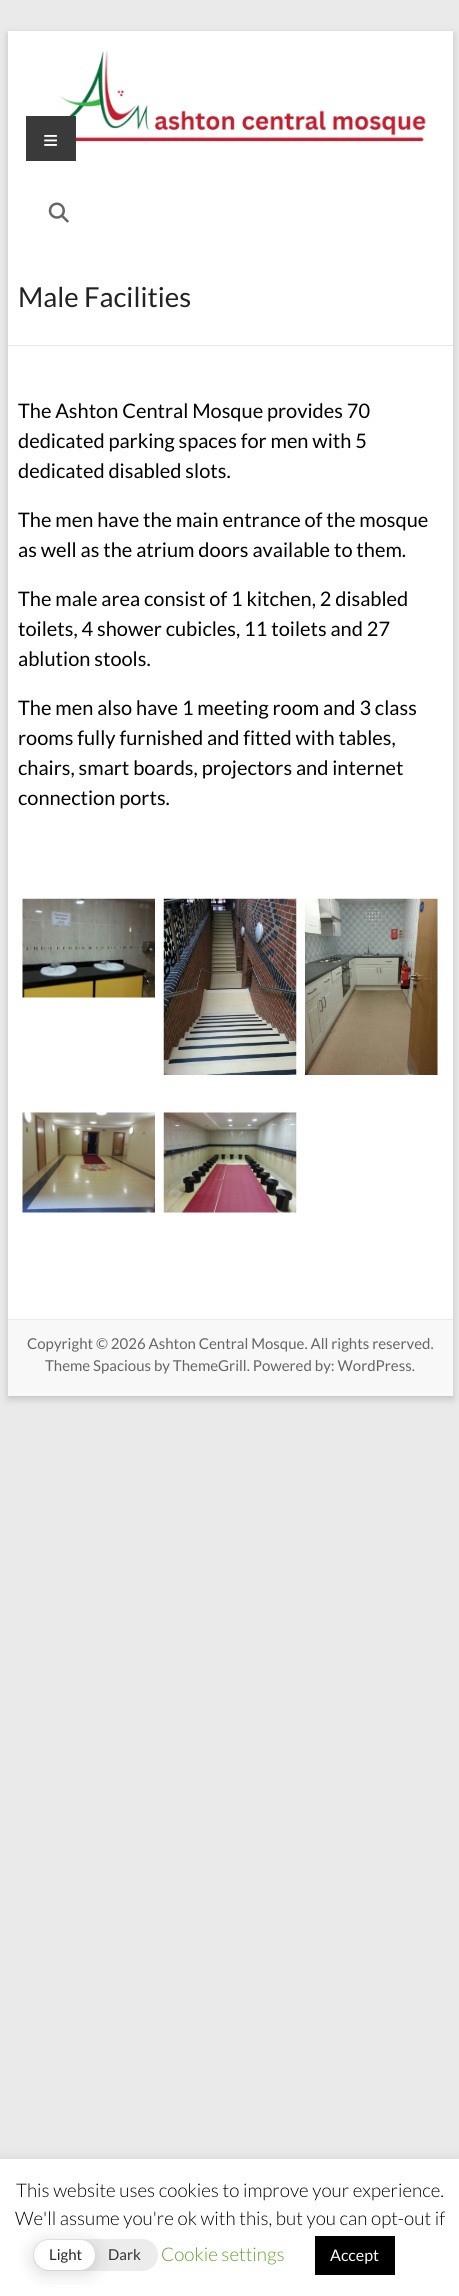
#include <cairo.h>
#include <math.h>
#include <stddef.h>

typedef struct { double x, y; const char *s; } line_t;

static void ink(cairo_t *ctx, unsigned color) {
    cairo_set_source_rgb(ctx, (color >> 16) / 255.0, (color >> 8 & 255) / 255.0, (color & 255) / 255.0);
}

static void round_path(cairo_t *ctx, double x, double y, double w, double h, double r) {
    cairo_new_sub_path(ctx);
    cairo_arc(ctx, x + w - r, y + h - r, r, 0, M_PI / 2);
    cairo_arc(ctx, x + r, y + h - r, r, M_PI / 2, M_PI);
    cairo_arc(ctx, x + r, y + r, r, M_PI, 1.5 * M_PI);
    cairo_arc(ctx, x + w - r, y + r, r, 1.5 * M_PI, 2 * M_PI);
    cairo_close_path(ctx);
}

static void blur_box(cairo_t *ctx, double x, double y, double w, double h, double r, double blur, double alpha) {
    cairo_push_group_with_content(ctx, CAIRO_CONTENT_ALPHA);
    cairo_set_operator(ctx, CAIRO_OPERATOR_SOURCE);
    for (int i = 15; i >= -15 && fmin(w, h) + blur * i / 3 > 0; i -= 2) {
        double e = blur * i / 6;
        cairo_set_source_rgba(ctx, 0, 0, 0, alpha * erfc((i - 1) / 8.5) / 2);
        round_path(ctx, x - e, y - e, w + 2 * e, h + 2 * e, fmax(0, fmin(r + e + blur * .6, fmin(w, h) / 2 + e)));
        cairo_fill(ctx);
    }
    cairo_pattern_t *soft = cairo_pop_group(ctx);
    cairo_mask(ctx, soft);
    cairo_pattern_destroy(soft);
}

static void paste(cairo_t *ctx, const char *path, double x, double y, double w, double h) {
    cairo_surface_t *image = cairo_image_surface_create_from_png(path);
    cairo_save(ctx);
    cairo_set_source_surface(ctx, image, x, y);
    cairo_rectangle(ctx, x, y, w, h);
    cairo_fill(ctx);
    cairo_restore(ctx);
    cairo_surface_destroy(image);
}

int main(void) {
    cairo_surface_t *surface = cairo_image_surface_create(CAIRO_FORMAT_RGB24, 459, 2296);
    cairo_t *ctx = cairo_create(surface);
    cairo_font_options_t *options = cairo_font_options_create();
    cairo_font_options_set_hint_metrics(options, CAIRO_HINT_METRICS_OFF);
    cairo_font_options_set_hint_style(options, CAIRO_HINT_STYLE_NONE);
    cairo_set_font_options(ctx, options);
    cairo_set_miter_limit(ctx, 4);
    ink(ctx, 0xEAEAEA);
    cairo_paint(ctx);
    ink(ctx, 0x646464);
    blur_box(ctx, 8, 34, 445, 1365, 0, 4, 0.3);
    ink(ctx, 0xFFFFFF);
    cairo_rectangle(ctx, 8, 31, 445, 1288);
    cairo_fill(ctx);
    paste(ctx, "media/2.png", 60, 51, 366, 91);
    ink(ctx, 0x3A3A3A);
    cairo_rectangle(ctx, 26, 116, 50, 45);
    cairo_fill(ctx);
    cairo_select_font_face(ctx, "Liberation Sans", CAIRO_FONT_SLANT_NORMAL, CAIRO_FONT_WEIGHT_NORMAL);
    cairo_set_font_size(ctx, 26);
    ink(ctx, 0xFFFFFF);
    cairo_move_to(ctx, 43, 149);
    cairo_show_text(ctx, "≡");
    paste(ctx, "media/1.png", 48, 202, 21, 21);
    ink(ctx, 0xEAEAEA);
    cairo_rectangle(ctx, 8, 345, 445, 1);
    cairo_fill(ctx);
    cairo_select_font_face(ctx, "Lato", CAIRO_FONT_SLANT_NORMAL, CAIRO_FONT_WEIGHT_NORMAL);
    cairo_set_font_size(ctx, 27.5);
    ink(ctx, 0x222222);
    cairo_move_to(ctx, 18, 307);
    cairo_show_text(ctx, "Male Facilities");
    cairo_set_font_size(ctx, 20);
    ink(ctx, 0x000000);
    {
        static const line_t items[] = {
            {18, 418, "The Ashton Central Mosque provides 70"},
            {18, 448, "dedicated parking spaces for men with 5"},
            {18, 478, "dedicated disabled slots."},
            {18, 527, "The men have the main entrance of the mosque"},
            {18, 557, "as well as the atrium doors available to them."},
            {18, 606, "The male area consist of 1 kitchen, 2 disabled"},
            {18, 636, "toilets, 4 shower cubicles, 11 toilets and 27"},
            {18, 666, "ablution stools."},
            {18, 715, "The men also have 1 meeting room and 3 class"},
            {18, 745, "rooms fully furnished and fitted with tables,"},
            {18, 775, "chairs, smart boards, projectors and internet"},
            {18, 805, "connection ports."},
        };
        for (size_t i = 0; i < sizeof items / sizeof *items; i++) {
            cairo_move_to(ctx, items[i].x, items[i].y);
            cairo_show_text(ctx, items[i].s);
        }
    }
    paste(ctx, "media/3.png", 22, 898, 133, 100);
    paste(ctx, "media/4.png", 163, 898, 134, 177);
    paste(ctx, "media/5.png", 305, 898, 133, 177);
    paste(ctx, "media/6.png", 22, 1112, 133, 101);
    paste(ctx, "media/7.png", 163, 1112, 134, 101);
    ink(ctx, 0xF8F8F8);
    cairo_rectangle(ctx, 8, 1320, 445, 76);
    cairo_fill(ctx);
    ink(ctx, 0xEAEAEA);
    cairo_rectangle(ctx, 8, 1319, 445, 1);
    cairo_fill(ctx);
    cairo_set_font_size(ctx, 15);
    ink(ctx, 0x666666);
    cairo_move_to(ctx, 27, 1349);
    cairo_show_text(ctx, "Copyright © 2026 Ashton Central Mosque. All rights reserved.");
    cairo_move_to(ctx, 45, 1371);
    cairo_show_text(ctx, "Theme Spacious by ThemeGrill. Powered by: WordPress.");
    ink(ctx, 0xACABAB);
    blur_box(ctx, 0, 2158, 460, 137, 0, 6, 0.3);
    ink(ctx, 0xFFFFFF);
    cairo_rectangle(ctx, 0, 2159, 459, 137);
    cairo_fill(ctx);
    cairo_select_font_face(ctx, "Lato Light", CAIRO_FONT_SLANT_NORMAL, CAIRO_FONT_WEIGHT_NORMAL);
    cairo_set_font_size(ctx, 18.75);
    ink(ctx, 0x000000);
    cairo_move_to(ctx, 16, 2197);
    cairo_show_text(ctx, "This website uses cookies to improve your experience.");
    cairo_move_to(ctx, 15, 2225);
    cairo_show_text(ctx, "We'll assume you're ok with this, but you can opt-out if");
    ink(ctx, 0x62A329);
    cairo_move_to(ctx, 161, 2261);
    cairo_show_text(ctx, "Cookie settings");
    ink(ctx, 0x000000);
    cairo_rectangle(ctx, 315, 2236, 80, 39);
    cairo_fill(ctx);
    cairo_select_font_face(ctx, "Lato", CAIRO_FONT_SLANT_NORMAL, CAIRO_FONT_WEIGHT_NORMAL);
    cairo_set_font_size(ctx, 16);
    ink(ctx, 0xFFFFFF);
    cairo_move_to(ctx, 330, 2261);
    cairo_show_text(ctx, "Accept");
    ink(ctx, 0xECECEC);
    round_path(ctx, 33, 2239, 125, 32, 16);
    cairo_fill(ctx);
    ink(ctx, 0x000000);
    blur_box(ctx, 34, 2243, 61, 30, 15, 9.5, 0.15);
    ink(ctx, 0xFFFFFF);
    round_path(ctx, 34, 2240, 61, 30, 15);
    cairo_fill(ctx);
    cairo_set_font_size(ctx, 15);
    ink(ctx, 0x27272C);
    cairo_move_to(ctx, 49, 2260);
    cairo_show_text(ctx, "Light");
    ink(ctx, 0x333338);
    cairo_move_to(ctx, 108, 2260);
    cairo_show_text(ctx, "Dark");
    cairo_surface_write_to_png(surface, "image.png");
    cairo_font_options_destroy(options);
    cairo_destroy(ctx);
    cairo_surface_destroy(surface);
    return 0;
}
